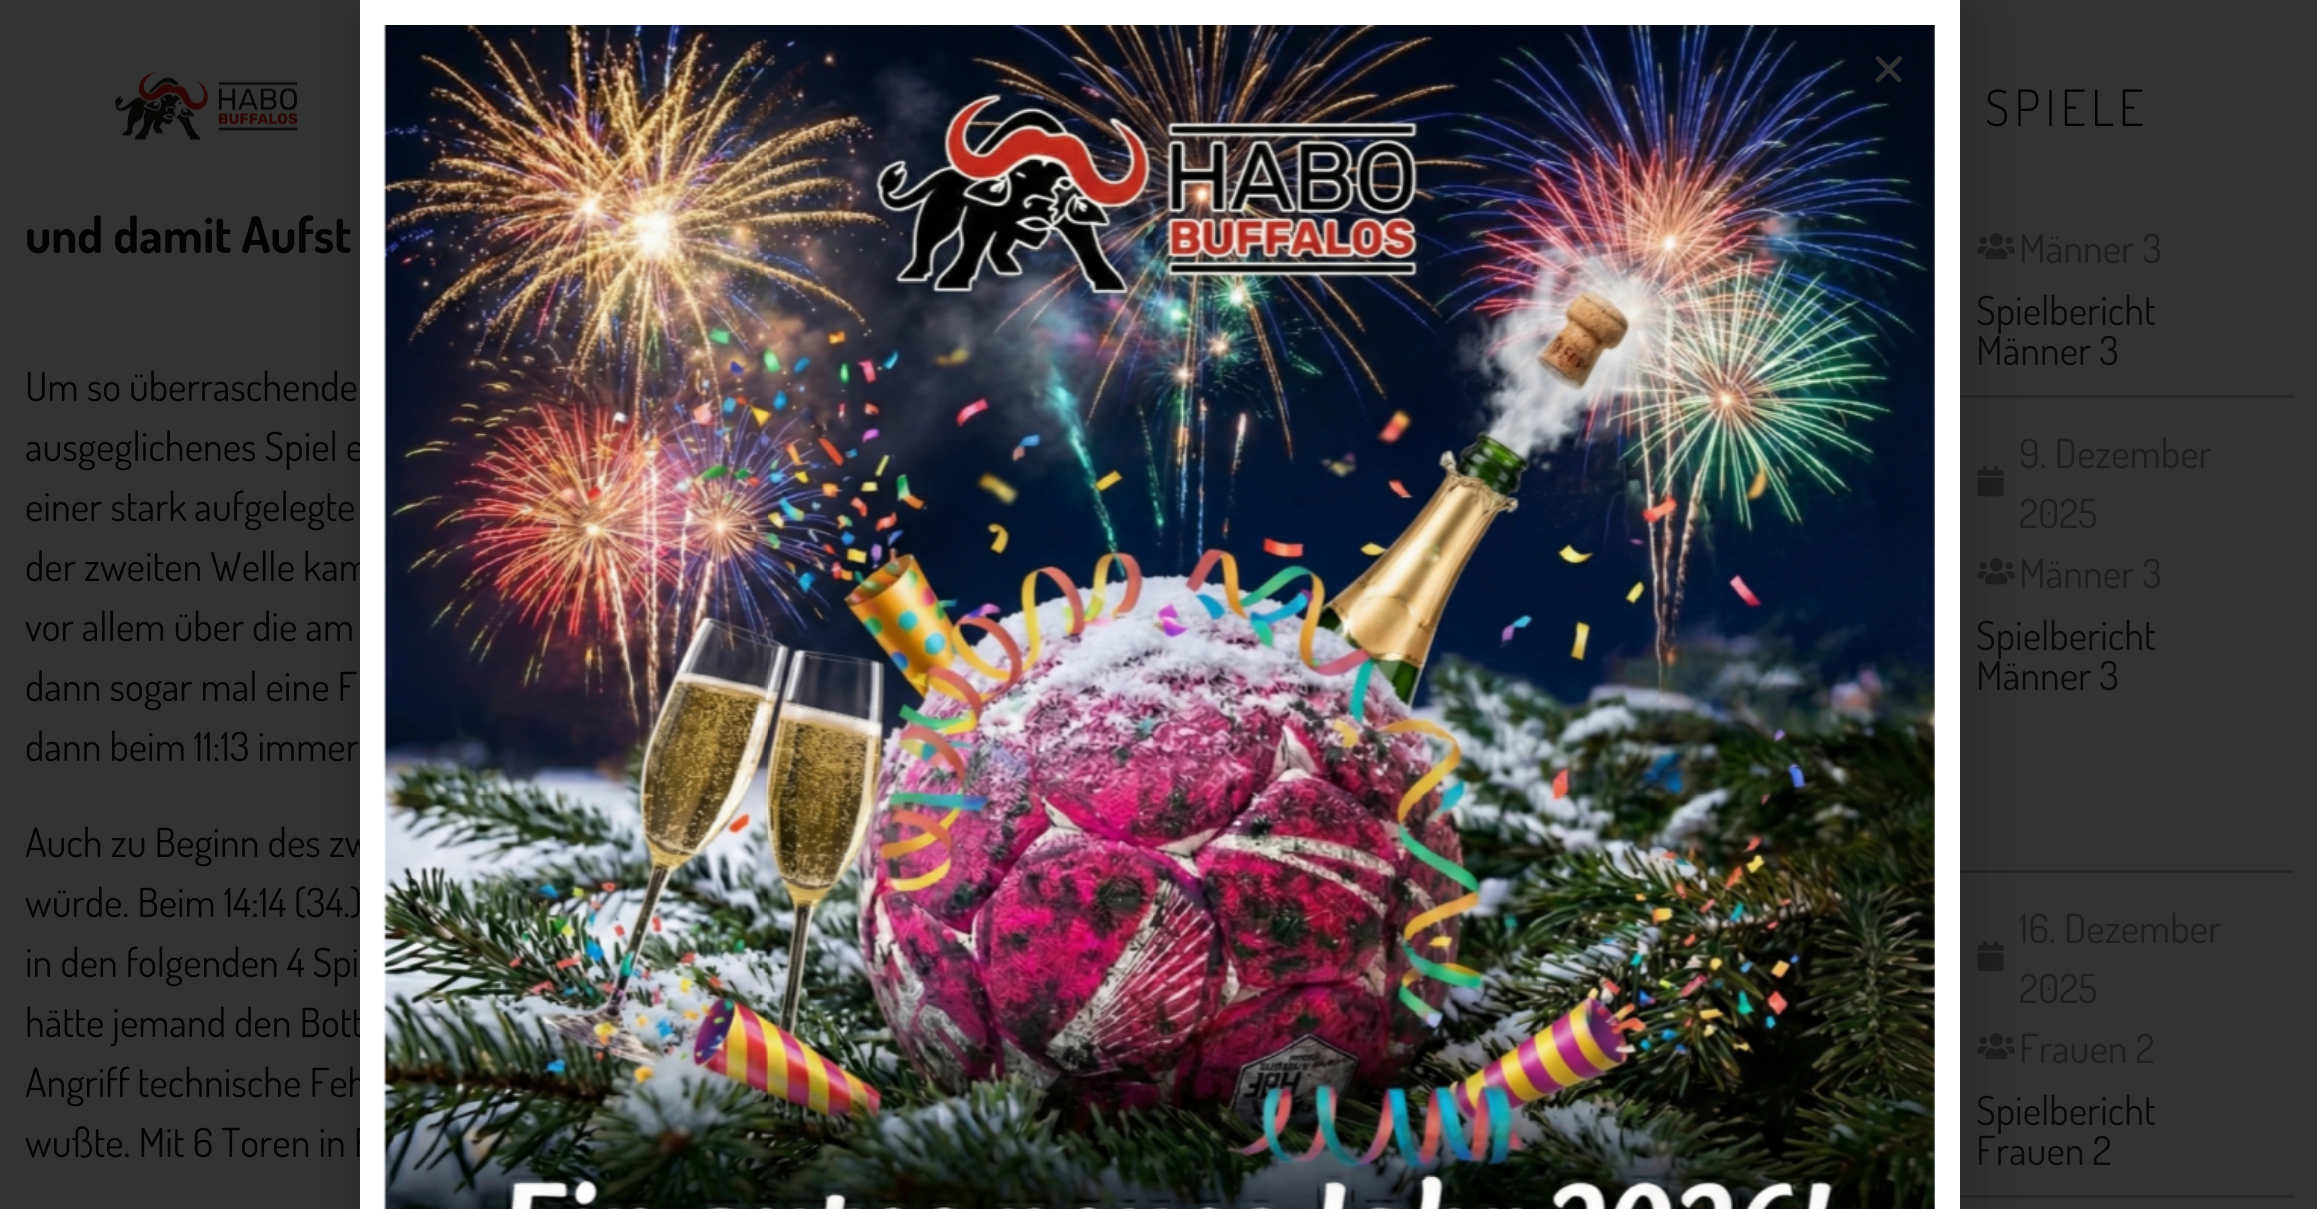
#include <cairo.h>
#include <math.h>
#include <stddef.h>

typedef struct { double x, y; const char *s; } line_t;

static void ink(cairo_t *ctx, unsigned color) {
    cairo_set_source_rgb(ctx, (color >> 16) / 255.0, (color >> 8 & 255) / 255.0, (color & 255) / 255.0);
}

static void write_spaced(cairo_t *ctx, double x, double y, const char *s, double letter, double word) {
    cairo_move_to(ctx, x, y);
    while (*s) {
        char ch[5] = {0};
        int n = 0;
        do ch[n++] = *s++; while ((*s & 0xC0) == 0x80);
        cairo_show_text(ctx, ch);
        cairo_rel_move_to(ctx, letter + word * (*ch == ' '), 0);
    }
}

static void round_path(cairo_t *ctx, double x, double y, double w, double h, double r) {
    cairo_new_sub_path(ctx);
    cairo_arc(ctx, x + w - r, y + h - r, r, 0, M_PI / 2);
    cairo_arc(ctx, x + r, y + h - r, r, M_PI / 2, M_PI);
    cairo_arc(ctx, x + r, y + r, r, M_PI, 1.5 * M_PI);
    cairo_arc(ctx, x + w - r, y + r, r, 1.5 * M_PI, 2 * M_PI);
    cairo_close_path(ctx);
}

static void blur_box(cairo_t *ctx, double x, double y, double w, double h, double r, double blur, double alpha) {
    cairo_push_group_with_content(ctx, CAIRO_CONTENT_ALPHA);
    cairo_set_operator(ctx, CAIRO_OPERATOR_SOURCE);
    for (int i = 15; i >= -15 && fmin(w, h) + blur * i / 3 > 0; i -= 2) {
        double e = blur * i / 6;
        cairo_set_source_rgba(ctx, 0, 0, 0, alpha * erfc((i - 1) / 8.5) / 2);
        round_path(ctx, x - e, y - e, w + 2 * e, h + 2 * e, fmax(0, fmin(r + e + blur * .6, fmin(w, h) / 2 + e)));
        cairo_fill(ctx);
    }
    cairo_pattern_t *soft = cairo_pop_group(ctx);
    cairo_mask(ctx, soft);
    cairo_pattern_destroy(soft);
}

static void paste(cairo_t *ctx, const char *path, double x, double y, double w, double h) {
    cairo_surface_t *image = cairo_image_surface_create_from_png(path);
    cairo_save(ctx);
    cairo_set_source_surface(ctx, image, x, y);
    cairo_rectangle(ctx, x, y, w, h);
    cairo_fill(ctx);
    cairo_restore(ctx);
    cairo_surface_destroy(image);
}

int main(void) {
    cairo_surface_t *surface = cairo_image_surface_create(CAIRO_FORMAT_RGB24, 2317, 1209);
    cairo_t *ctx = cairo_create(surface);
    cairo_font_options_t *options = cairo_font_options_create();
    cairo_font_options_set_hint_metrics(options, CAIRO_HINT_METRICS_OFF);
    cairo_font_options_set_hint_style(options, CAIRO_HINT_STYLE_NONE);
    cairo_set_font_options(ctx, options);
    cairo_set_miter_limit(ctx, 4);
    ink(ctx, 0x333333);
    cairo_paint(ctx);
    paste(ctx, "media/3.png", 115, 72, 183, 69);
    paste(ctx, "media/4.png", 1977, 233, 38, 27);
    ink(ctx, 0x272727);
    cairo_rectangle(ctx, 1953, 395, 340, 3);
    cairo_fill(ctx);
    paste(ctx, "media/5.png", 1977, 466, 27, 31);
    paste(ctx, "media/4.png", 1977, 558, 38, 27);
    cairo_rectangle(ctx, 1953, 870, 340, 3);
    cairo_fill(ctx);
    paste(ctx, "media/5.png", 1977, 941, 27, 31);
    paste(ctx, "media/4.png", 1977, 1033, 38, 27);
    cairo_rectangle(ctx, 1953, 1195, 340, 3);
    cairo_fill(ctx);
    ink(ctx, 0x000000);
    blur_box(ctx, 358, 13, 1615, 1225, 0, 29, 0.2);
    cairo_select_font_face(ctx, "Dosis", CAIRO_FONT_SLANT_NORMAL, CAIRO_FONT_WEIGHT_NORMAL);
    cairo_set_font_size(ctx, 40);
    ink(ctx, 0x030303);
    {
        static const line_t items[] = {
            {25, 461, "ausgeglichenes Spiel e"},
            {25, 581, "der zweiten Welle kam"},
            {25, 857, "Auch zu Beginn des zw"},
            {25, 1037, "hätte jemand den Bott"},
            {25, 1097, "Angriff technische Feh"},
            {25, 1157, "wußte. Mit 6 Toren in F"},
        };
        for (size_t i = 0; i < sizeof items / sizeof *items; i++) {
            cairo_move_to(ctx, items[i].x, items[i].y);
            cairo_show_text(ctx, items[i].s);
        }
    }
    ink(ctx, 0xFFFFFF);
    cairo_rectangle(ctx, 360, 0, 1600, 1209);
    cairo_fill(ctx);
    paste(ctx, "media/1.png", 383, 25, 1552, 1184);
    paste(ctx, "media/2.png", 1875, 56, 27, 27);
    cairo_select_font_face(ctx, "Dosis Light", CAIRO_FONT_SLANT_NORMAL, CAIRO_FONT_WEIGHT_NORMAL);
    cairo_set_font_size(ctx, 50);
    ink(ctx, 0x030303);
    write_spaced(ctx, 1985, 126, "SPIELE", 5, 0);
    cairo_select_font_face(ctx, "Dosis", CAIRO_FONT_SLANT_NORMAL, CAIRO_FONT_WEIGHT_BOLD);
    cairo_move_to(ctx, 25, 253);
    cairo_show_text(ctx, "und damit Aufst");
    cairo_select_font_face(ctx, "Dosis", CAIRO_FONT_SLANT_NORMAL, CAIRO_FONT_WEIGHT_NORMAL);
    cairo_set_font_size(ctx, 40);
    {
        static const line_t items[] = {
            {25, 401, "Um so überraschende"},
            {25, 521, "einer stark aufgelegte"},
            {25, 641, "vor allem über die am"},
            {25, 701, "dann sogar mal eine F"},
            {25, 761, "dann beim 11:13 immer"},
            {25, 917, "würde. Beim 14:14 (34.)"},
            {25, 977, "in den folgenden 4 Spi"},
        };
        for (size_t i = 0; i < sizeof items / sizeof *items; i++) {
            cairo_move_to(ctx, items[i].x, items[i].y);
            cairo_show_text(ctx, items[i].s);
        }
    }
    ink(ctx, 0x1F1F1F);
    cairo_move_to(ctx, 2019, 263);
    cairo_show_text(ctx, "Männer 3");
    ink(ctx, 0x0A0A0A);
    cairo_move_to(ctx, 1976, 325);
    cairo_show_text(ctx, "Spielbericht");
    cairo_move_to(ctx, 1976, 365);
    cairo_show_text(ctx, "Männer 3");
    ink(ctx, 0x1F1F1F);
    {
        static const line_t items[] = {
            {2019, 468, "9. Dezember"},
            {2019, 528, "2025"},
            {2019, 588, "Männer 3"},
        };
        for (size_t i = 0; i < sizeof items / sizeof *items; i++) {
            cairo_move_to(ctx, items[i].x, items[i].y);
            cairo_show_text(ctx, items[i].s);
        }
    }
    ink(ctx, 0x0A0A0A);
    cairo_move_to(ctx, 1976, 650);
    cairo_show_text(ctx, "Spielbericht");
    cairo_move_to(ctx, 1976, 690);
    cairo_show_text(ctx, "Männer 3");
    ink(ctx, 0x1F1F1F);
    {
        static const line_t items[] = {
            {2019, 943, "16. Dezember"},
            {2019, 1003, "2025"},
            {2019, 1063, "Frauen 2"},
        };
        for (size_t i = 0; i < sizeof items / sizeof *items; i++) {
            cairo_move_to(ctx, items[i].x, items[i].y);
            cairo_show_text(ctx, items[i].s);
        }
    }
    ink(ctx, 0x0A0A0A);
    cairo_move_to(ctx, 1976, 1125);
    cairo_show_text(ctx, "Spielbericht");
    cairo_move_to(ctx, 1976, 1165);
    cairo_show_text(ctx, "Frauen 2");
    cairo_surface_write_to_png(surface, "image.png");
    cairo_font_options_destroy(options);
    cairo_destroy(ctx);
    cairo_surface_destroy(surface);
    return 0;
}
